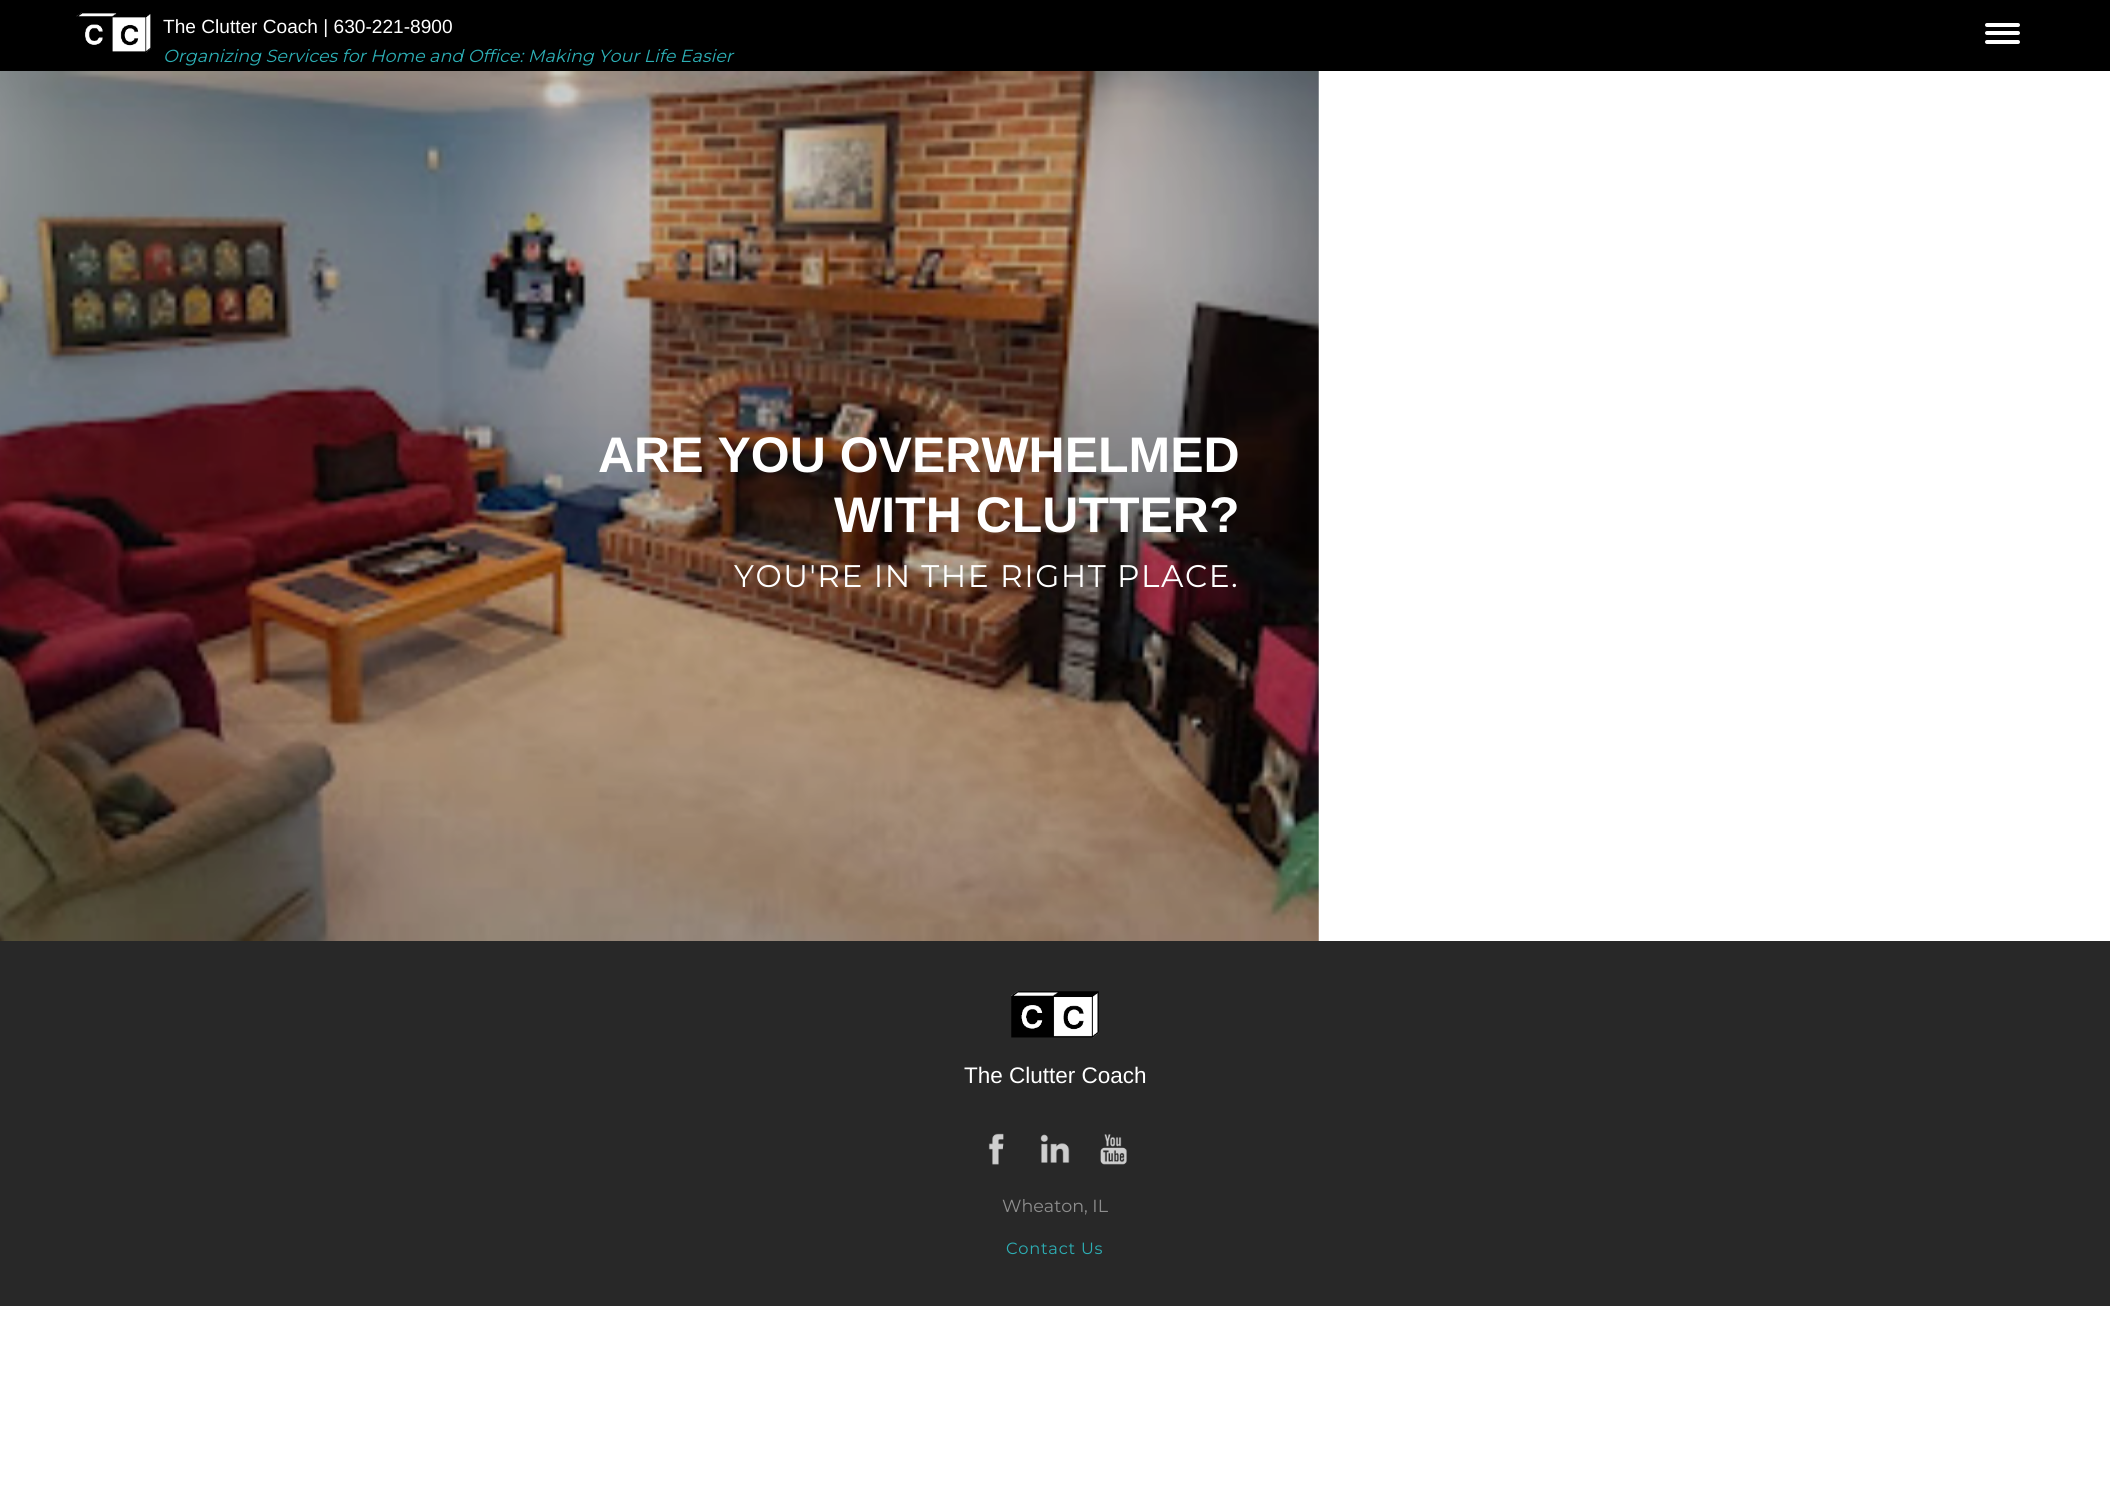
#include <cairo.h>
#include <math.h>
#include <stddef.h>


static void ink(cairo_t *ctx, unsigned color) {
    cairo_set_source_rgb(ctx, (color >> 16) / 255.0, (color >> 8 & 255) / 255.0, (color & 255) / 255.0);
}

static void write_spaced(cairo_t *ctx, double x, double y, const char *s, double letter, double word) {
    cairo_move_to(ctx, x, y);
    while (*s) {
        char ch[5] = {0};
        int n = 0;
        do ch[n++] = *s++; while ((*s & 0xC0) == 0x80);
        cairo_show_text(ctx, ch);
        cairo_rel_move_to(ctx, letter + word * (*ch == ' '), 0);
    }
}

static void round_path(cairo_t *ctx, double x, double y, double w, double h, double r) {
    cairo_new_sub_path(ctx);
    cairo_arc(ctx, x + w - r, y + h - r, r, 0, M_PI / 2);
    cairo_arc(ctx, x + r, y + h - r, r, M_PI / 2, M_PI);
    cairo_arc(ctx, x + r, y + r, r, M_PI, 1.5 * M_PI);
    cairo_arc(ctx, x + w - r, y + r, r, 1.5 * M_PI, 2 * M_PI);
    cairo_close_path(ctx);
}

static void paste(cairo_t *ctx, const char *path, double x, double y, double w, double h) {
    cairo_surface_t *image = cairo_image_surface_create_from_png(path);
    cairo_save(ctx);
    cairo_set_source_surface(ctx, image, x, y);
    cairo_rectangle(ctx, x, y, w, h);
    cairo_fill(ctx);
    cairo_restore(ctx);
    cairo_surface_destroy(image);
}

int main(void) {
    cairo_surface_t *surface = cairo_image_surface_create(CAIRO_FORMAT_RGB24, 2110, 1506);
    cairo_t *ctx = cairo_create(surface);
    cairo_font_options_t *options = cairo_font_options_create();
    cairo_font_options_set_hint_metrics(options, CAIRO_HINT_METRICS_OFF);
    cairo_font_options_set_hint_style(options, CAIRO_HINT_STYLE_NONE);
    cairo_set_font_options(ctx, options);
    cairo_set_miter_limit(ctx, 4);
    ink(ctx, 0xFFFFFF);
    cairo_paint(ctx);
    ink(ctx, 0x000000);
    cairo_rectangle(ctx, 0, 0, 2110, 71);
    cairo_fill(ctx);
    paste(ctx, "media/1.png", 76, 12, 76, 41);
    cairo_select_font_face(ctx, "Liberation Sans", CAIRO_FONT_SLANT_NORMAL, CAIRO_FONT_WEIGHT_NORMAL);
    cairo_set_font_size(ctx, 19.1);
    ink(ctx, 0xFFFFFF);
    cairo_move_to(ctx, 163, 33);
    cairo_show_text(ctx, "The Clutter Coach | 630-221-8900");
    cairo_select_font_face(ctx, "Montserrat Thin", CAIRO_FONT_SLANT_ITALIC, CAIRO_FONT_WEIGHT_NORMAL);
    cairo_set_font_size(ctx, 17.5);
    ink(ctx, 0x2CAFB5);
    cairo_move_to(ctx, 163, 62);
    cairo_show_text(ctx, "Organizing Services for Home and Office: Making Your Life Easier");
    ink(ctx, 0xFFFFFF);
    round_path(ctx, 1985, 31, 35, 4, 2);
    cairo_fill(ctx);
    round_path(ctx, 1985, 23, 35, 4, 2);
    cairo_fill(ctx);
    round_path(ctx, 1985, 40, 35, 4, 2);
    cairo_fill(ctx);
    paste(ctx, "media/2.png", 0, 71, 1319, 870);
    cairo_select_font_face(ctx, "Liberation Sans", CAIRO_FONT_SLANT_NORMAL, CAIRO_FONT_WEIGHT_BOLD);
    cairo_set_font_size(ctx, 50);
    cairo_move_to(ctx, 598, 472);
    cairo_show_text(ctx, "ARE YOU OVERWHELMED");
    cairo_move_to(ctx, 834, 532);
    cairo_show_text(ctx, "WITH CLUTTER?");
    cairo_select_font_face(ctx, "Montserrat Thin", CAIRO_FONT_SLANT_NORMAL, CAIRO_FONT_WEIGHT_NORMAL);
    cairo_set_font_size(ctx, 31.25);
    write_spaced(ctx, 734, 587, "YOU'RE IN THE RIGHT PLACE.", 1.55, 0);
    ink(ctx, 0x282828);
    cairo_rectangle(ctx, 0, 941, 2110, 365);
    cairo_fill(ctx);
    paste(ctx, "media/3.png", 1011, 991, 88, 47);
    cairo_select_font_face(ctx, "Liberation Sans", CAIRO_FONT_SLANT_NORMAL, CAIRO_FONT_WEIGHT_NORMAL);
    cairo_set_font_size(ctx, 22.5);
    ink(ctx, 0xFFFFFF);
    cairo_move_to(ctx, 964, 1083);
    cairo_show_text(ctx, "The Clutter Coach");
    paste(ctx, "media/4.png", 988, 1133, 16, 32);
    paste(ctx, "media/5.png", 1040, 1134, 30, 29);
    paste(ctx, "media/6.png", 1100, 1134, 27, 31);
    cairo_select_font_face(ctx, "Montserrat Thin", CAIRO_FONT_SLANT_NORMAL, CAIRO_FONT_WEIGHT_NORMAL);
    cairo_set_font_size(ctx, 17.5);
    ink(ctx, 0x8E8E8E);
    cairo_move_to(ctx, 1002, 1212);
    cairo_show_text(ctx, "Wheaton, IL");
    cairo_set_font_size(ctx, 16.25);
    ink(ctx, 0x2CAFB5);
    write_spaced(ctx, 1006, 1254, "Contact Us", 0.75, 0);
    cairo_surface_write_to_png(surface, "image.png");
    cairo_font_options_destroy(options);
    cairo_destroy(ctx);
    cairo_surface_destroy(surface);
    return 0;
}
